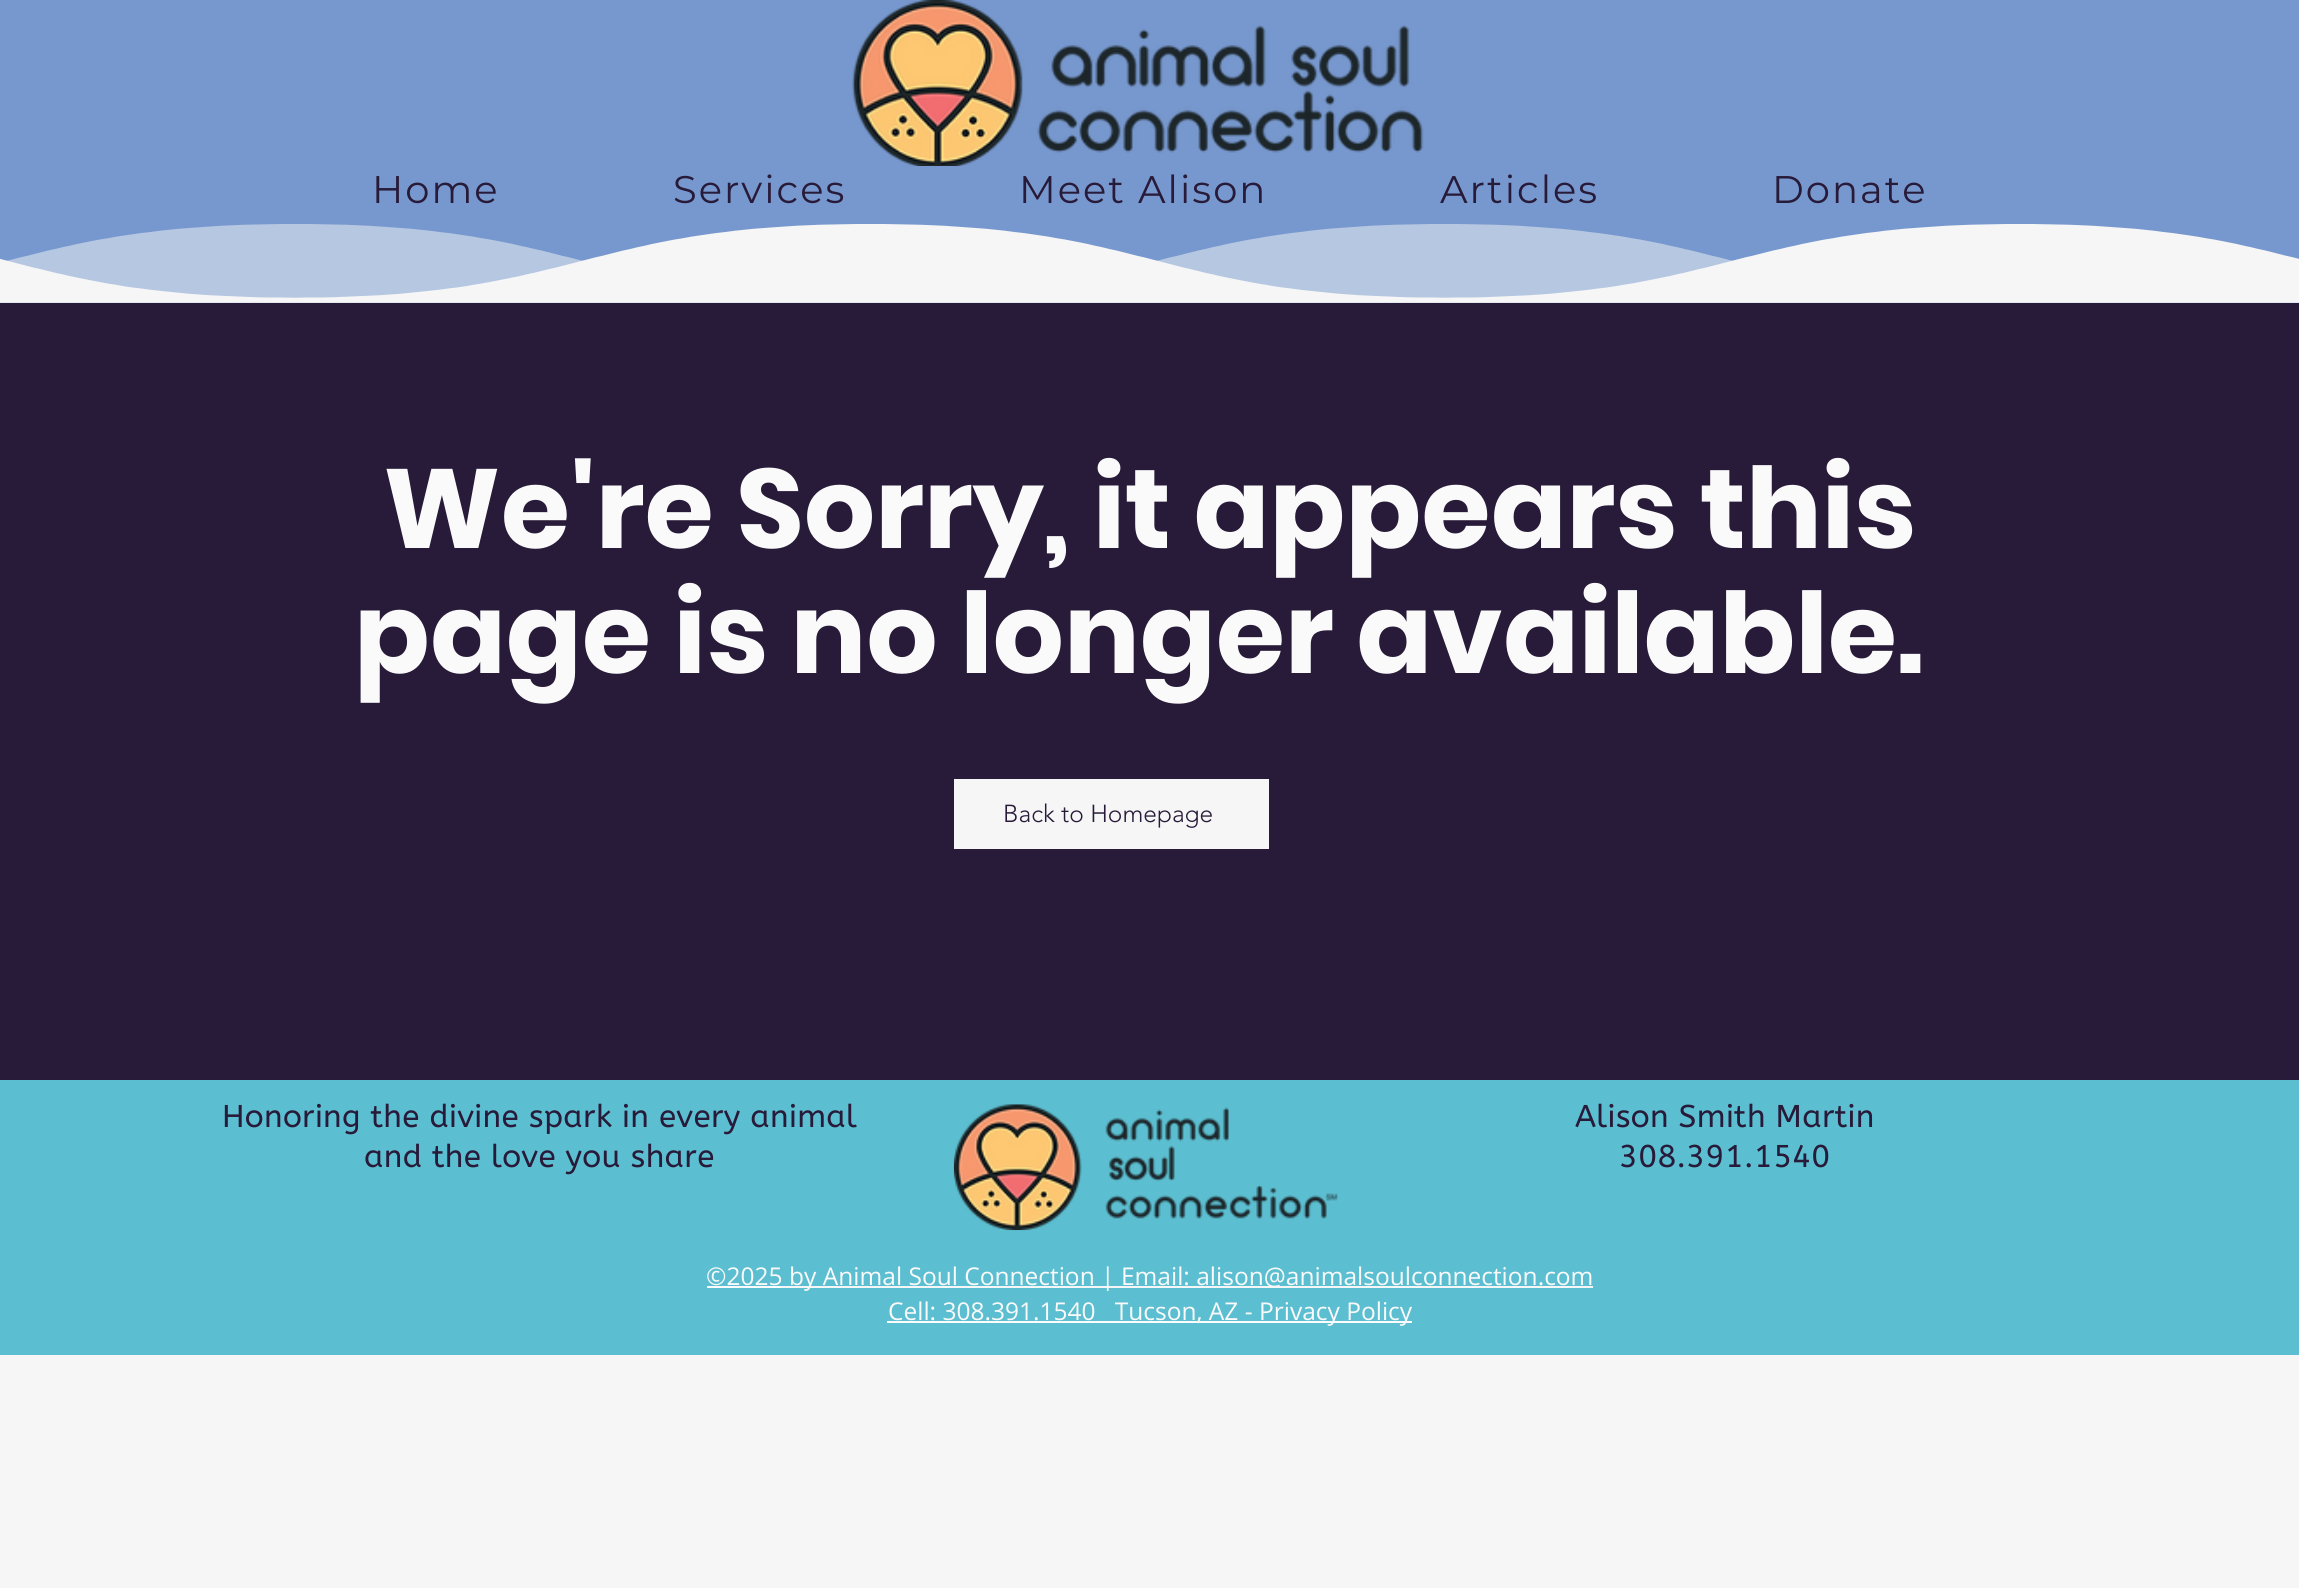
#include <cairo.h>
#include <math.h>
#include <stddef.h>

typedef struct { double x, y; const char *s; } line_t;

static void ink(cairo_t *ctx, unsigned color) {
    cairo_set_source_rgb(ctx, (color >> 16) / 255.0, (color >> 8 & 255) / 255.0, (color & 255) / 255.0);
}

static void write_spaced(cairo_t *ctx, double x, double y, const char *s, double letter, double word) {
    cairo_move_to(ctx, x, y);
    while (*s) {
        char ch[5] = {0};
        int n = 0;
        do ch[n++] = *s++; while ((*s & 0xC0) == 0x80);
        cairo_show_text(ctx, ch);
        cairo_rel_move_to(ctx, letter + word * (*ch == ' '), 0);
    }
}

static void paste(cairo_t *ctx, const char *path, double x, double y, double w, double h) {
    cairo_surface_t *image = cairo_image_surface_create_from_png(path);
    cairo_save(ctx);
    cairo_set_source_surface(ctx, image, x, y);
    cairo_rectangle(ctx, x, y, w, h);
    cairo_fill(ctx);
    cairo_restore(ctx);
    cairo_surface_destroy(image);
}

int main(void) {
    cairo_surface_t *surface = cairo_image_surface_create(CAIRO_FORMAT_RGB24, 2299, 1588);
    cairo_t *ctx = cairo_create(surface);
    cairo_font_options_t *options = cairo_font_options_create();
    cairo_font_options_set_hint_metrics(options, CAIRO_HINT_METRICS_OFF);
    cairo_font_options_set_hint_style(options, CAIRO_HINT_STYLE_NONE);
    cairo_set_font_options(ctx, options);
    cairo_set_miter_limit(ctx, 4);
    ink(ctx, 0xF6F6F6);
    cairo_paint(ctx);
    ink(ctx, 0x7798CE);
    cairo_rectangle(ctx, 0, 0, 2299, 303);
    cairo_fill(ctx);
    paste(ctx, "media/1.png", 852, 0, 572, 166);
    cairo_select_font_face(ctx, "Montserrat", CAIRO_FONT_SLANT_NORMAL, CAIRO_FONT_WEIGHT_NORMAL);
    cairo_set_font_size(ctx, 38.5);
    ink(ctx, 0x281A39);
    {
        static const line_t items[] = {
            {372, 203, "Home"},
            {673, 203, "Services"},
            {1019, 203, "Meet Alison"},
            {1440, 203, "Articles"},
            {1772, 203, "Donate"},
        };
        for (size_t i = 0; i < sizeof items / sizeof *items; i++) {
            write_spaced(ctx, items[i].x, items[i].y, items[i].s, 2, 0);
        }
    }
    paste(ctx, "media/2.png", 0, 224, 2299, 79);
    paste(ctx, "media/3.png", 0, 224, 2299, 79);
    cairo_rectangle(ctx, 0, 303, 2299, 777);
    cairo_fill(ctx);
    cairo_select_font_face(ctx, "Poppins", CAIRO_FONT_SLANT_NORMAL, CAIRO_FONT_WEIGHT_BOLD);
    cairo_set_font_size(ctx, 112);
    ink(ctx, 0xFAFAFA);
    cairo_move_to(ctx, 383, 548);
    cairo_show_text(ctx, "We're Sorry, it appears this");
    cairo_move_to(ctx, 354, 673);
    cairo_show_text(ctx, "page is no longer available.");
    ink(ctx, 0xF6F6F6);
    cairo_rectangle(ctx, 954, 779, 315, 70);
    cairo_fill(ctx);
    cairo_select_font_face(ctx, "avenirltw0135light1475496 Light", CAIRO_FONT_SLANT_NORMAL, CAIRO_FONT_WEIGHT_NORMAL);
    cairo_set_font_size(ctx, 24.5);
    ink(ctx, 0x281A39);
    cairo_move_to(ctx, 1003, 822);
    cairo_show_text(ctx, "Back to Homepage");
    ink(ctx, 0x5CBFD1);
    cairo_rectangle(ctx, 0, 1080, 2299, 275);
    cairo_fill(ctx);
    cairo_select_font_face(ctx, "ABeeZee", CAIRO_FONT_SLANT_NORMAL, CAIRO_FONT_WEIGHT_NORMAL);
    cairo_set_font_size(ctx, 31.5);
    ink(ctx, 0x281A39);
    {
        static const line_t items[] = {
            {222, 1127, "Honoring the divine spark in every animal"},
            {364, 1167, "and the love you share"},
            {1575, 1127, "Alison Smith Martin"},
            {1619, 1167, "308.391.1540"},
        };
        for (size_t i = 0; i < sizeof items / sizeof *items; i++) {
            write_spaced(ctx, items[i].x, items[i].y, items[i].s, 0.3, 0);
        }
    }
    paste(ctx, "media/4.png", 953, 1104, 385, 127);
    cairo_select_font_face(ctx, "Open Sans", CAIRO_FONT_SLANT_NORMAL, CAIRO_FONT_WEIGHT_NORMAL);
    cairo_set_font_size(ctx, 24.5);
    ink(ctx, 0xFAFAFA);
    cairo_move_to(ctx, 706, 1285);
    cairo_show_text(ctx, "©2025");
    ink(ctx, 0xFDFCFC);
    cairo_rectangle(ctx, 707, 1286, 75, 2);
    cairo_fill(ctx);
    ink(ctx, 0xF6F6F6);
    cairo_rectangle(ctx, 782, 1286, 811, 2);
    cairo_fill(ctx);
    ink(ctx, 0xFAFAFA);
    cairo_move_to(ctx, 789, 1285);
    cairo_show_text(ctx, "by Animal Soul Connection | Email: alison@animalsoulconnection.com");
    ink(ctx, 0xFDFCFC);
    cairo_rectangle(ctx, 887, 1321, 525, 2);
    cairo_fill(ctx);
    ink(ctx, 0xFAFAFA);
    cairo_move_to(ctx, 888, 1320);
    cairo_show_text(ctx, "Cell: 308.391.1540   Tucson, AZ - Privacy Policy");
    cairo_surface_write_to_png(surface, "image.png");
    cairo_font_options_destroy(options);
    cairo_destroy(ctx);
    cairo_surface_destroy(surface);
    return 0;
}
